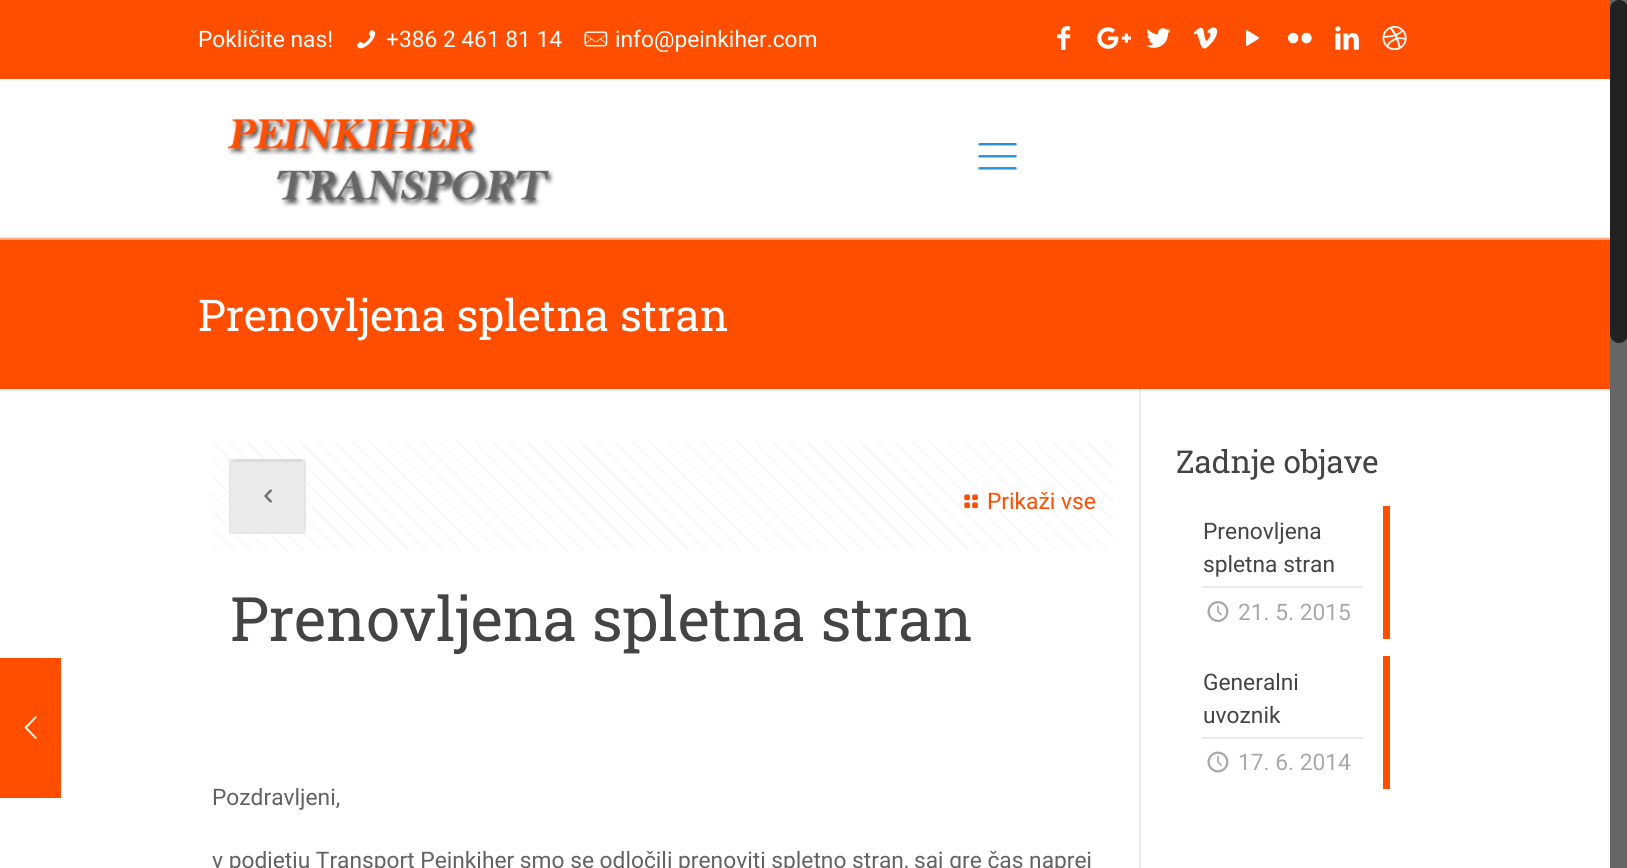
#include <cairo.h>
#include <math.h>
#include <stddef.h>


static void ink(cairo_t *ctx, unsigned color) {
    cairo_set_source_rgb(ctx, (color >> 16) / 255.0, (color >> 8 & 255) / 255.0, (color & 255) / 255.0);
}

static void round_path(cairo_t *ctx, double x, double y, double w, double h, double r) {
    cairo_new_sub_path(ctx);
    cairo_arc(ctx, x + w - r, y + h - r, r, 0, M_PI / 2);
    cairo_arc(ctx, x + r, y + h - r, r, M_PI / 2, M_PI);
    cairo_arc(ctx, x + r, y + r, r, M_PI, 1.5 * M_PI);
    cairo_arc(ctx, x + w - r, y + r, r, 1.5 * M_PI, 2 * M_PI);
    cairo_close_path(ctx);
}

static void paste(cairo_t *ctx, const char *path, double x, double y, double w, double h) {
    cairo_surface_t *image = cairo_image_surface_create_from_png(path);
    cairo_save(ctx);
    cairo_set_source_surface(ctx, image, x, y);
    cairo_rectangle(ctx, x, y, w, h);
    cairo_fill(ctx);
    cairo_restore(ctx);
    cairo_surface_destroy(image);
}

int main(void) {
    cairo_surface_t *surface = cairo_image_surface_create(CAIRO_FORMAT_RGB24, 1627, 868);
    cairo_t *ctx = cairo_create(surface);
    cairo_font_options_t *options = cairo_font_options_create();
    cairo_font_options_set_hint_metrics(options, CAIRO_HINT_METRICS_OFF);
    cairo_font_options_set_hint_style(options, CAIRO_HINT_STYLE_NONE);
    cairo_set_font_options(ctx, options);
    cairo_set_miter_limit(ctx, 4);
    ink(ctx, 0xFFFFFF);
    cairo_paint(ctx);
    ink(ctx, 0xFF4E00);
    cairo_rectangle(ctx, 0, 658, 61, 140);
    cairo_fill(ctx);
    paste(ctx, "media/1.png", 24, 716, 13, 23);
    cairo_rectangle(ctx, 0, 0, 1610, 79);
    cairo_fill(ctx);
    cairo_select_font_face(ctx, "Roboto", CAIRO_FONT_SLANT_NORMAL, CAIRO_FONT_WEIGHT_NORMAL);
    cairo_set_font_size(ctx, 22.75);
    ink(ctx, 0xFFFFFF);
    cairo_move_to(ctx, 198, 47);
    cairo_show_text(ctx, "Pokličite nas!");
    paste(ctx, "media/2.png", 357, 30, 19, 19);
    cairo_move_to(ctx, 386, 47);
    cairo_show_text(ctx, "+386 2 461 81 14");
    paste(ctx, "media/3.png", 584, 31, 24, 16);
    cairo_move_to(ctx, 615, 47);
    cairo_show_text(ctx, "info@peinkiher.com");
    paste(ctx, "media/4.png", 1057, 26, 14, 24);
    paste(ctx, "media/5.png", 1097, 27, 34, 22);
    paste(ctx, "media/6.png", 1146, 28, 25, 20);
    paste(ctx, "media/7.png", 1193, 27, 25, 22);
    paste(ctx, "media/8.png", 1246, 30, 14, 16);
    paste(ctx, "media/9.png", 1288, 32, 24, 12);
    paste(ctx, "media/10.png", 1335, 26, 24, 24);
    paste(ctx, "media/11.png", 1382, 26, 25, 25);
    ink(ctx, 0xF2F2F2);
    cairo_rectangle(ctx, 0, 236, 1610, 2);
    cairo_fill(ctx);
    paste(ctx, "media/12.png", 227, 119, 327, 88);
    paste(ctx, "media/13.png", 978, 143, 39, 27);
    ink(ctx, 0xFF4E00);
    cairo_rectangle(ctx, 0, 240, 1610, 149);
    cairo_fill(ctx);
    ink(ctx, 0xFFA780);
    cairo_rectangle(ctx, 0, 238, 1610, 2);
    cairo_fill(ctx);
    cairo_select_font_face(ctx, "Roboto Slab", CAIRO_FONT_SLANT_NORMAL, CAIRO_FONT_WEIGHT_NORMAL);
    cairo_set_font_size(ctx, 43.75);
    ink(ctx, 0xFFFFFF);
    cairo_move_to(ctx, 198, 331);
    cairo_show_text(ctx, "Prenovljena spletna stran");
    ink(ctx, 0xEBEBEB);
    cairo_rectangle(ctx, 1139, 389, 2, 479);
    cairo_fill(ctx);
    paste(ctx, "media/14.png", 0, 388, 1610, 4);
    paste(ctx, "media/15.png", 212, 441, 901, 110);
    ink(ctx, 0xF7F7F7);
    round_path(ctx, 229, 459, 77, 75, 9);
    cairo_fill(ctx);
    paste(ctx, "media/16.png", 231, 459, 73, 4);
    cairo_rectangle(ctx, 230, 460, 75, 73);
    cairo_set_source_rgba(ctx, 0, 0, 0, 0.03);
    cairo_stroke(ctx);
    cairo_set_source_rgba(ctx, 0, 0, 0, 0.05);
    cairo_rectangle(ctx, 229, 459, 77, 75);
    cairo_fill(ctx);
    paste(ctx, "media/17.png", 264, 489, 8, 14);
    paste(ctx, "media/18.png", 964, 494, 14, 15);
    cairo_select_font_face(ctx, "Roboto", CAIRO_FONT_SLANT_NORMAL, CAIRO_FONT_WEIGHT_NORMAL);
    cairo_set_font_size(ctx, 22.75);
    ink(ctx, 0xFF4E00);
    cairo_move_to(ctx, 987, 509);
    cairo_show_text(ctx, "Prikaži vse");
    cairo_select_font_face(ctx, "Roboto Slab", CAIRO_FONT_SLANT_NORMAL, CAIRO_FONT_WEIGHT_NORMAL);
    cairo_set_font_size(ctx, 61.25);
    ink(ctx, 0x444444);
    cairo_move_to(ctx, 230, 641);
    cairo_show_text(ctx, "Prenovljena spletna stran");
    cairo_select_font_face(ctx, "Roboto", CAIRO_FONT_SLANT_NORMAL, CAIRO_FONT_WEIGHT_NORMAL);
    cairo_set_font_size(ctx, 22.75);
    ink(ctx, 0x626262);
    cairo_move_to(ctx, 212, 805);
    cairo_show_text(ctx, "Pozdravljeni,");
    cairo_move_to(ctx, 212, 868);
    cairo_show_text(ctx, "v podjetju Transport Peinkiher smo se odločili prenoviti spletno stran, saj gre čas naprej");
    cairo_select_font_face(ctx, "Roboto Slab", CAIRO_FONT_SLANT_NORMAL, CAIRO_FONT_WEIGHT_NORMAL);
    cairo_set_font_size(ctx, 31.5);
    ink(ctx, 0x444444);
    cairo_move_to(ctx, 1176, 473);
    cairo_show_text(ctx, "Zadnje objave");
    ink(ctx, 0xEBEBEB);
    cairo_rectangle(ctx, 1202, 586, 161, 2);
    cairo_fill(ctx);
    cairo_select_font_face(ctx, "Roboto", CAIRO_FONT_SLANT_NORMAL, CAIRO_FONT_WEIGHT_NORMAL);
    cairo_set_font_size(ctx, 22.75);
    ink(ctx, 0x444444);
    cairo_move_to(ctx, 1203, 539);
    cairo_show_text(ctx, "Prenovljena");
    cairo_move_to(ctx, 1203, 572);
    cairo_show_text(ctx, "spletna stran");
    ink(ctx, 0xFF4E00);
    cairo_rectangle(ctx, 1383, 506, 7, 133);
    cairo_fill(ctx);
    paste(ctx, "media/19.png", 1207, 601, 22, 21);
    ink(ctx, 0xA8A8A8);
    cairo_move_to(ctx, 1238, 620);
    cairo_show_text(ctx, "21. 5. 2015");
    ink(ctx, 0xEBEBEB);
    cairo_rectangle(ctx, 1202, 737, 161, 2);
    cairo_fill(ctx);
    ink(ctx, 0x444444);
    cairo_move_to(ctx, 1203, 690);
    cairo_show_text(ctx, "Generalni");
    cairo_move_to(ctx, 1203, 723);
    cairo_show_text(ctx, "uvoznik");
    ink(ctx, 0xFF4E00);
    cairo_rectangle(ctx, 1383, 656, 7, 133);
    cairo_fill(ctx);
    paste(ctx, "media/20.png", 1207, 751, 22, 22);
    ink(ctx, 0xA8A8A8);
    cairo_move_to(ctx, 1238, 770);
    cairo_show_text(ctx, "17. 6. 2014");
    ink(ctx, 0x666666);
    cairo_rectangle(ctx, 1610, 0, 17, 868);
    cairo_fill(ctx);
    ink(ctx, 0x222222);
    round_path(ctx, 1610, 0, 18, 343, 9);
    cairo_fill(ctx);
    cairo_surface_write_to_png(surface, "image.png");
    cairo_font_options_destroy(options);
    cairo_destroy(ctx);
    cairo_surface_destroy(surface);
    return 0;
}
